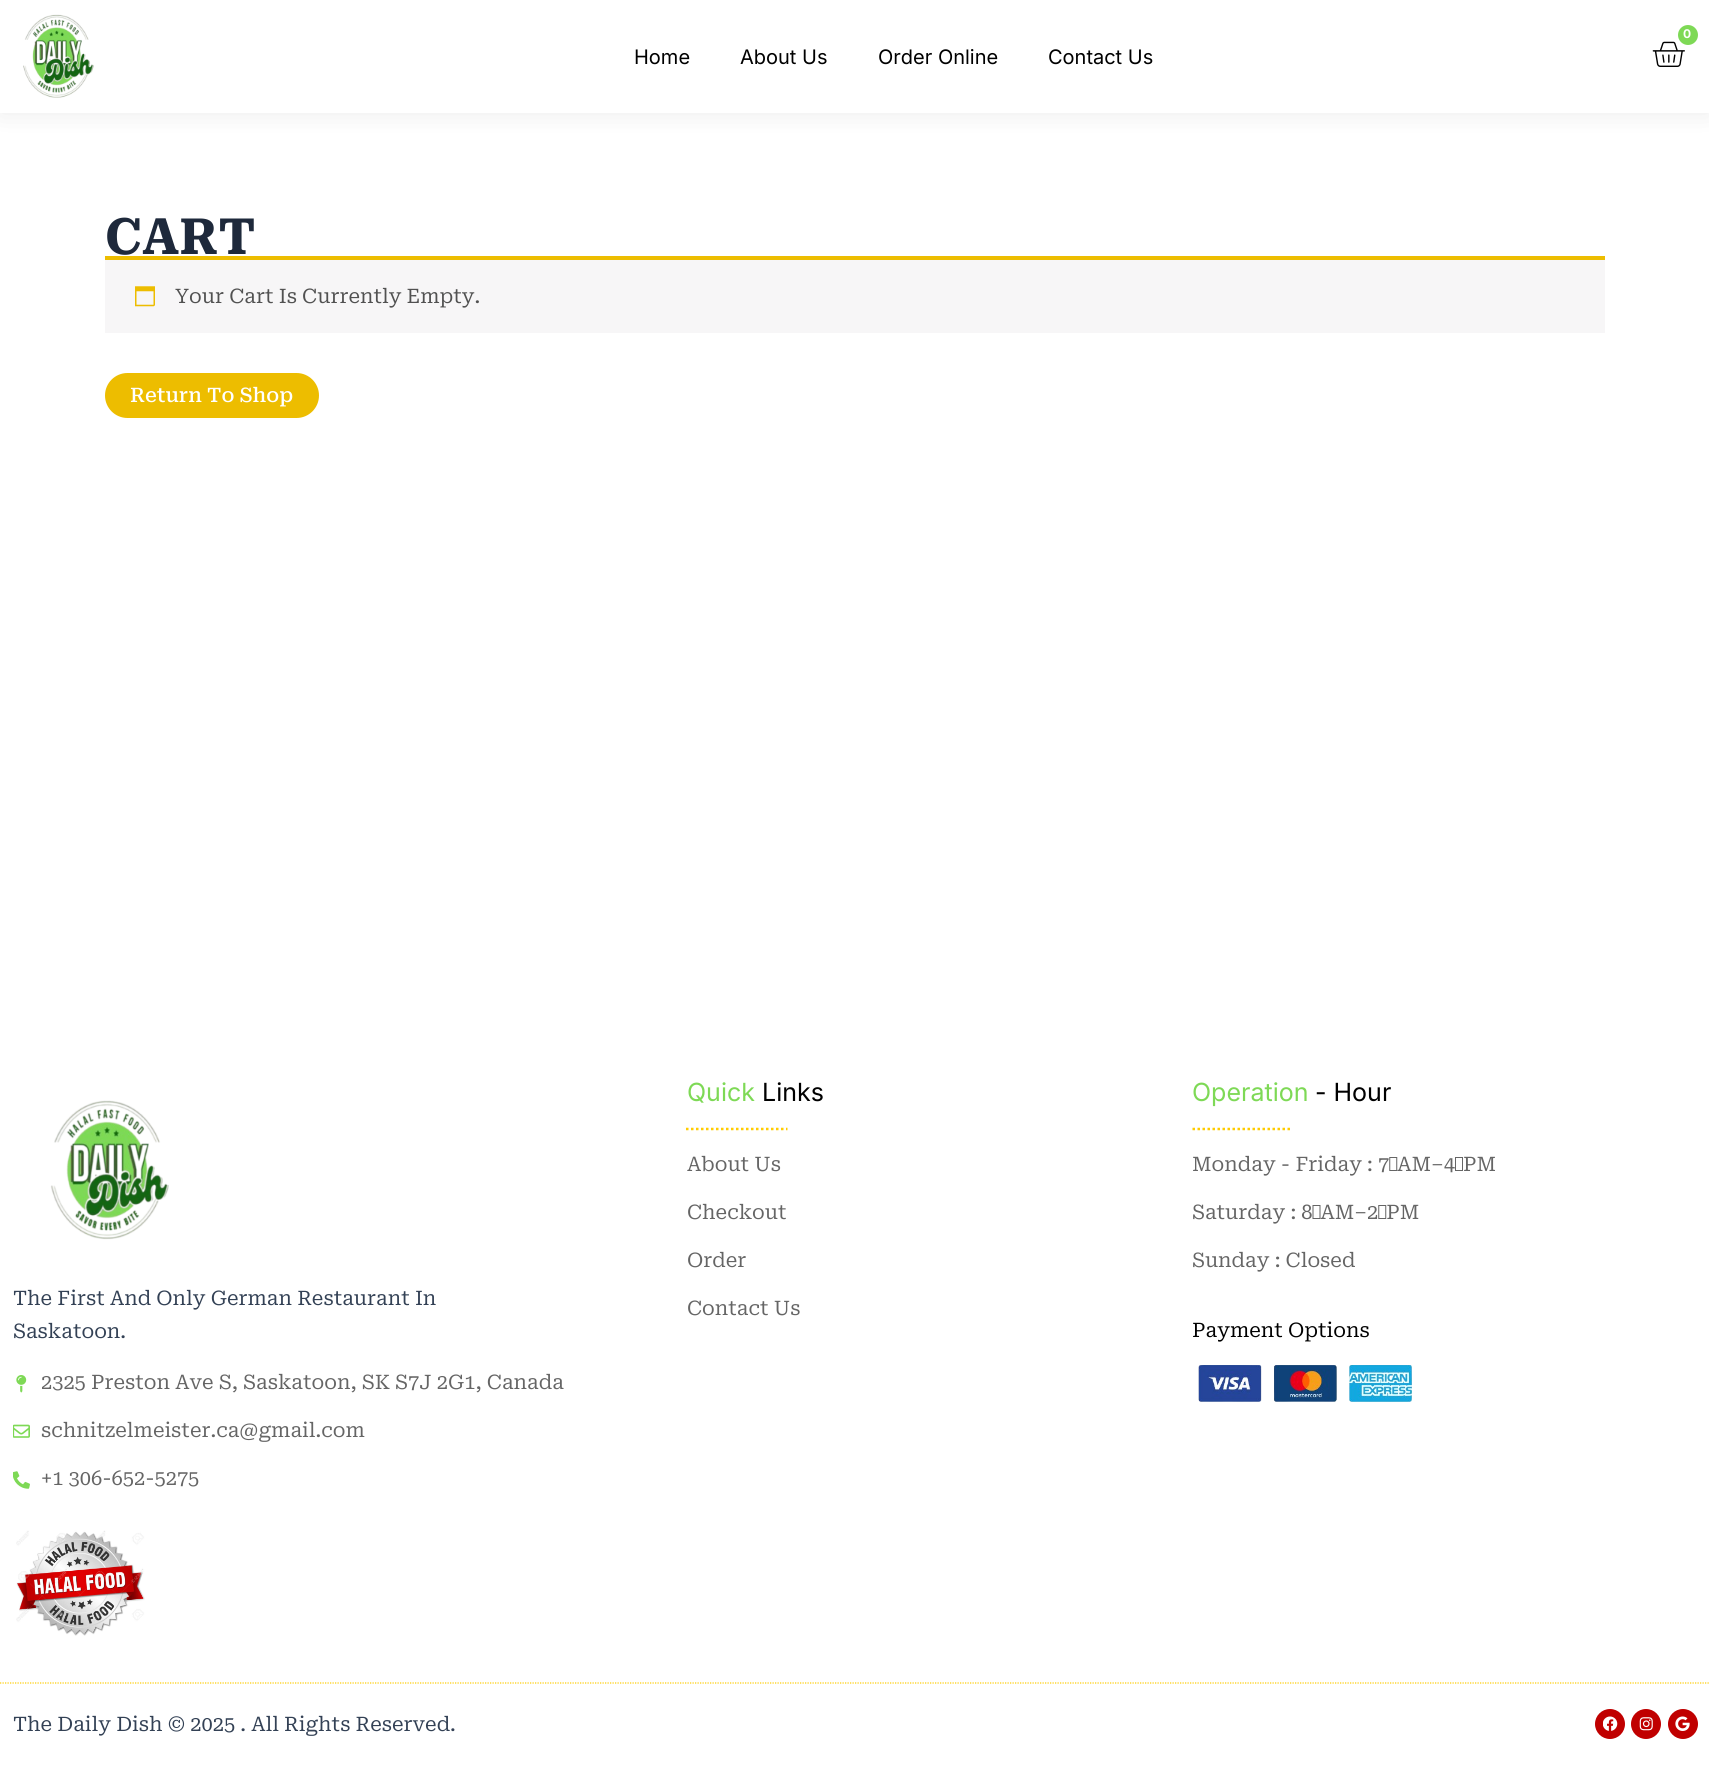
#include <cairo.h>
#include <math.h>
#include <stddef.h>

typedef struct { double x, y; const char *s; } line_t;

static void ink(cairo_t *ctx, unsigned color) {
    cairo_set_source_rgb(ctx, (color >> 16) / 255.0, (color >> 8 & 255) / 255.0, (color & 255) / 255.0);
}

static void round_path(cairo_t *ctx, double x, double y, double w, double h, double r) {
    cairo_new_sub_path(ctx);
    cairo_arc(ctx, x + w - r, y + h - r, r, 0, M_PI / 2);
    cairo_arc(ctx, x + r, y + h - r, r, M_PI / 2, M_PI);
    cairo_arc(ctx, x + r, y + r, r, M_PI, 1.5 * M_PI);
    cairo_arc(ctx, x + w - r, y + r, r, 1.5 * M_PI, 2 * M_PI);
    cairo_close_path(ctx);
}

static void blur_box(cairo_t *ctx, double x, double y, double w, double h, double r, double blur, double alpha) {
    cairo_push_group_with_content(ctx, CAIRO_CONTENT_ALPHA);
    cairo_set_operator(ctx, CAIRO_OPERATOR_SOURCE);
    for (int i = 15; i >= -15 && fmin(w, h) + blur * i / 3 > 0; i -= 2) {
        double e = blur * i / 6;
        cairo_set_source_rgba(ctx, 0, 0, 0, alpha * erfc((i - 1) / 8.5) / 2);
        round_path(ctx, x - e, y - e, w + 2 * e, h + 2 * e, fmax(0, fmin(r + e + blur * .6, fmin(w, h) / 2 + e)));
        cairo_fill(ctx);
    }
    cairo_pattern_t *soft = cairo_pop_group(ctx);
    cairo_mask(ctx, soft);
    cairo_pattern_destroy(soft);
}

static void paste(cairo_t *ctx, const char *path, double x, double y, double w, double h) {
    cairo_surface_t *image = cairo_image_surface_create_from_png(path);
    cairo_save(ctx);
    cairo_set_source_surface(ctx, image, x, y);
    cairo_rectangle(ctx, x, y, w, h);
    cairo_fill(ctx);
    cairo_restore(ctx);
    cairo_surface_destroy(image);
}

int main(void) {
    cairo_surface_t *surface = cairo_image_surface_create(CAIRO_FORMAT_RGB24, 1709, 1766);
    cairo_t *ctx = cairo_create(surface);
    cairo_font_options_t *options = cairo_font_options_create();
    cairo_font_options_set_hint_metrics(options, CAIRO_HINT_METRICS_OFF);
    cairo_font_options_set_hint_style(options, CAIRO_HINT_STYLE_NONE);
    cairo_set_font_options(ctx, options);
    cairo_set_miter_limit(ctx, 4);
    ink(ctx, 0xFFFFFF);
    cairo_paint(ctx);
    ink(ctx, 0x000000);
    blur_box(ctx, 0, 0, 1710, 113, 0, 13, 0.08);
    ink(ctx, 0xFFFFFF);
    cairo_rectangle(ctx, 0, 0, 1709, 113);
    cairo_fill(ctx);
    paste(ctx, "media/1.png", 23, 14, 71, 84);
    paste(ctx, "media/2.png", 1652, 41, 33, 26);
    ink(ctx, 0x7ED956);
    cairo_arc(ctx, 1688, 35, 10, 0, 2 * M_PI);
    cairo_fill(ctx);
    cairo_select_font_face(ctx, "Inter", CAIRO_FONT_SLANT_NORMAL, CAIRO_FONT_WEIGHT_BOLD);
    cairo_set_font_size(ctx, 12);
    ink(ctx, 0xFFFFFF);
    cairo_move_to(ctx, 1683, 38);
    cairo_show_text(ctx, "0");
    cairo_select_font_face(ctx, "Inter", CAIRO_FONT_SLANT_NORMAL, CAIRO_FONT_WEIGHT_NORMAL);
    cairo_set_font_size(ctx, 20);
    ink(ctx, 0x000000);
    {
        static const line_t items[] = {
            {634, 64, "Home"},
            {740, 64, "About Us"},
            {878, 64, "Order Online"},
            {1048, 64, "Contact Us"},
        };
        for (size_t i = 0; i < sizeof items / sizeof *items; i++) {
            cairo_move_to(ctx, items[i].x, items[i].y);
            cairo_show_text(ctx, items[i].s);
        }
    }
    cairo_select_font_face(ctx, "Roboto Serif", CAIRO_FONT_SLANT_NORMAL, CAIRO_FONT_WEIGHT_BOLD);
    cairo_set_font_size(ctx, 50);
    ink(ctx, 0x1E293B);
    cairo_move_to(ctx, 105, 254);
    cairo_show_text(ctx, "CART");
    ink(ctx, 0xF7F6F7);
    cairo_rectangle(ctx, 105, 260, 1500, 73);
    cairo_fill(ctx);
    ink(ctx, 0xEDBD00);
    cairo_rectangle(ctx, 105, 256, 1500, 4);
    cairo_fill(ctx);
    paste(ctx, "media/3.png", 135, 286, 20, 21);
    cairo_select_font_face(ctx, "Roboto Serif", CAIRO_FONT_SLANT_NORMAL, CAIRO_FONT_WEIGHT_NORMAL);
    cairo_set_font_size(ctx, 20);
    ink(ctx, 0x515151);
    cairo_move_to(ctx, 175, 303);
    cairo_show_text(ctx, "Your Cart Is Currently Empty.");
    ink(ctx, 0xEDBD00);
    round_path(ctx, 105, 373, 214, 45, 22.5);
    cairo_fill(ctx);
    cairo_select_font_face(ctx, "Roboto Serif Medium", CAIRO_FONT_SLANT_NORMAL, CAIRO_FONT_WEIGHT_NORMAL);
    ink(ctx, 0xFFFFFF);
    cairo_move_to(ctx, 130, 402);
    cairo_show_text(ctx, "Return To Shop");
    cairo_select_font_face(ctx, "Inter", CAIRO_FONT_SLANT_NORMAL, CAIRO_FONT_WEIGHT_NORMAL);
    cairo_set_font_size(ctx, 25);
    ink(ctx, 0x7ED956);
    cairo_move_to(ctx, 687, 1101);
    cairo_show_text(ctx, "Quick");
    ink(ctx, 0x000000);
    cairo_move_to(ctx, 762, 1101);
    cairo_show_text(ctx, "Links");
    cairo_new_path(ctx);
    cairo_move_to(ctx, 686, 1129);
    cairo_line_to(ctx, 787.5, 1129);
    ink(ctx, 0xFFCC00);
    cairo_set_line_width(ctx, 2.5);
    cairo_set_dash(ctx, (double[]){2.5, 2.5}, 2, 0);
    cairo_stroke(ctx);
    cairo_select_font_face(ctx, "Roboto Serif", CAIRO_FONT_SLANT_NORMAL, CAIRO_FONT_WEIGHT_NORMAL);
    cairo_set_font_size(ctx, 20);
    ink(ctx, 0x656565);
    {
        static const line_t items[] = {
            {687, 1171, "About Us"},
            {687, 1219, "Checkout"},
            {687, 1267, "Order"},
            {687, 1315, "Contact Us"},
        };
        for (size_t i = 0; i < sizeof items / sizeof *items; i++) {
            cairo_move_to(ctx, items[i].x, items[i].y);
            cairo_show_text(ctx, items[i].s);
        }
    }
    cairo_select_font_face(ctx, "Inter", CAIRO_FONT_SLANT_NORMAL, CAIRO_FONT_WEIGHT_NORMAL);
    cairo_set_font_size(ctx, 25);
    ink(ctx, 0x7ED956);
    cairo_move_to(ctx, 1192, 1101);
    cairo_show_text(ctx, "Operation");
    ink(ctx, 0x000000);
    cairo_move_to(ctx, 1315, 1101);
    cairo_show_text(ctx, "- Hour");
    cairo_new_path(ctx);
    cairo_move_to(ctx, 1192.5, 1129);
    cairo_line_to(ctx, 1292.5, 1129);
    ink(ctx, 0xFFCC00);
    cairo_stroke(ctx);
    cairo_select_font_face(ctx, "Roboto Serif", CAIRO_FONT_SLANT_NORMAL, CAIRO_FONT_WEIGHT_NORMAL);
    cairo_set_font_size(ctx, 20);
    ink(ctx, 0x656565);
    {
        static const line_t items[] = {
            {1192, 1171, "Monday - Friday : 7 AM–4 PM"},
            {1192, 1219, "Saturday : 8 AM–2 PM"},
            {1192, 1267, "Sunday : Closed"},
        };
        for (size_t i = 0; i < sizeof items / sizeof *items; i++) {
            cairo_move_to(ctx, items[i].x, items[i].y);
            cairo_show_text(ctx, items[i].s);
        }
    }
    ink(ctx, 0x000000);
    cairo_move_to(ctx, 1192, 1337);
    cairo_show_text(ctx, "Payment Options");
    paste(ctx, "media/4.png", 1198, 1365, 214, 37);
    paste(ctx, "media/5.png", 50, 1100, 119, 140);
    ink(ctx, 0x334155);
    cairo_move_to(ctx, 13, 1305);
    cairo_show_text(ctx, "The First And Only German Restaurant In");
    cairo_move_to(ctx, 13, 1338);
    cairo_show_text(ctx, "Saskatoon.");
    paste(ctx, "media/6.png", 16, 1375, 11, 18);
    ink(ctx, 0x656565);
    cairo_move_to(ctx, 41, 1389);
    cairo_show_text(ctx, "2325 Preston Ave S, Saskatoon, SK S7J 2G1, Canada");
    paste(ctx, "media/7.png", 13, 1424, 17, 14);
    cairo_move_to(ctx, 41, 1437);
    cairo_show_text(ctx, "schnitzelmeister.ca@gmail.com");
    paste(ctx, "media/8.png", 13, 1471, 17, 18);
    cairo_move_to(ctx, 41, 1485);
    cairo_show_text(ctx, "+1 306-652-5275");
    paste(ctx, "media/9.png", 16, 1530, 129, 106);
    cairo_new_path(ctx);
    cairo_move_to(ctx, 0, 1683);
    cairo_line_to(ctx, 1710, 1683);
    ink(ctx, 0xFFCC00);
    cairo_set_line_width(ctx, 1.2);
    cairo_set_dash(ctx, (double[]){1.25, 1.25}, 2, 0);
    cairo_stroke(ctx);
    ink(ctx, 0x334155);
    cairo_move_to(ctx, 13, 1731);
    cairo_show_text(ctx, "The Daily Dish © 2025 . All Rights Reserved.");
    ink(ctx, 0xC00000);
    cairo_new_path(ctx);
    cairo_arc(ctx, 1610, 1724, 15, 0, 2 * M_PI);
    cairo_fill(ctx);
    paste(ctx, "media/10.png", 1603, 1716, 15, 15);
    cairo_arc(ctx, 1646, 1724, 15, 0, 2 * M_PI);
    cairo_fill(ctx);
    paste(ctx, "media/11.png", 1639, 1717, 14, 14);
    cairo_arc(ctx, 1683, 1724, 15, 0, 2 * M_PI);
    cairo_fill(ctx);
    paste(ctx, "media/12.png", 1675, 1716, 15, 15);
    cairo_surface_write_to_png(surface, "image.png");
    cairo_font_options_destroy(options);
    cairo_destroy(ctx);
    cairo_surface_destroy(surface);
    return 0;
}
